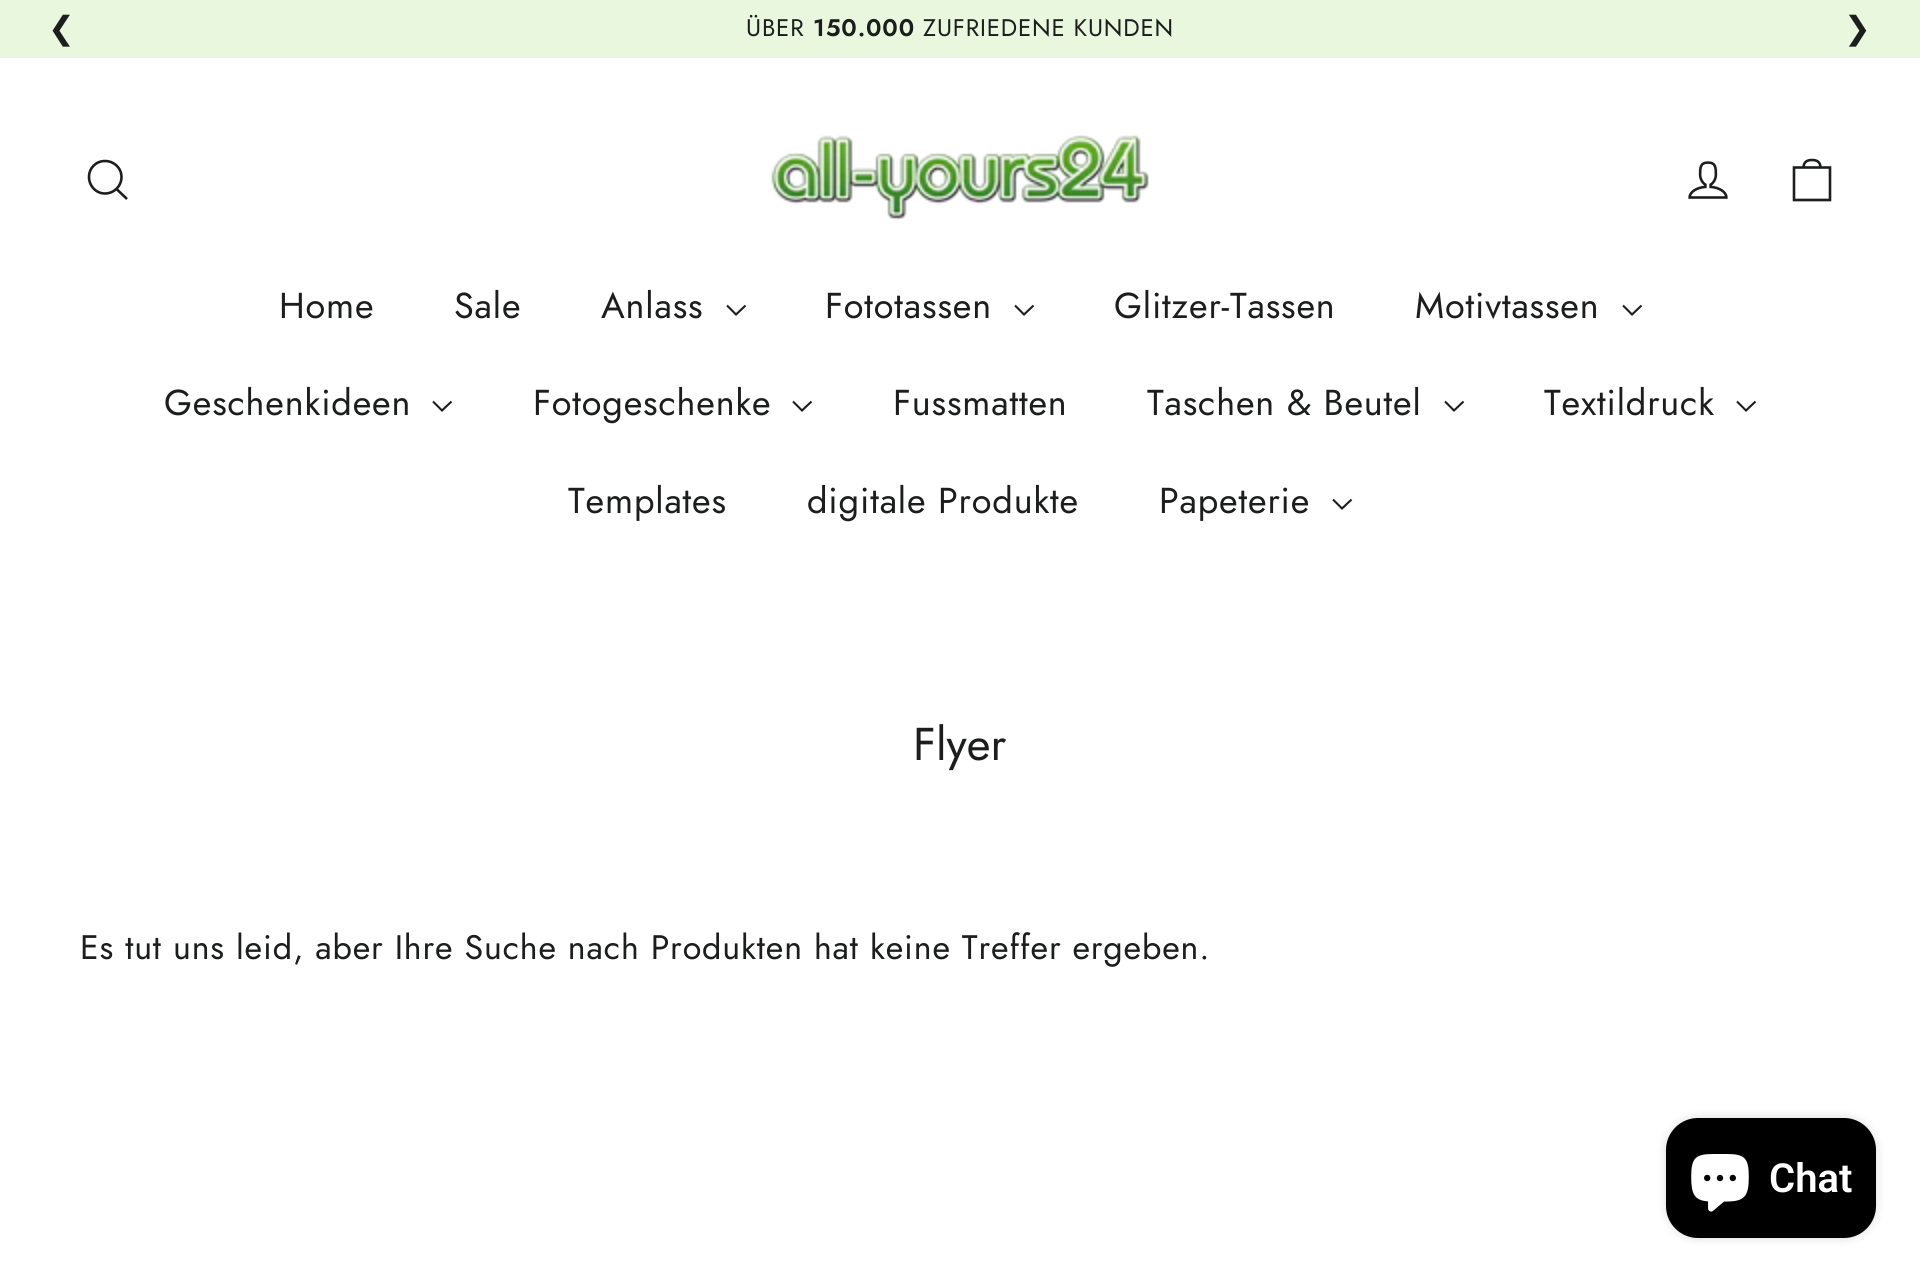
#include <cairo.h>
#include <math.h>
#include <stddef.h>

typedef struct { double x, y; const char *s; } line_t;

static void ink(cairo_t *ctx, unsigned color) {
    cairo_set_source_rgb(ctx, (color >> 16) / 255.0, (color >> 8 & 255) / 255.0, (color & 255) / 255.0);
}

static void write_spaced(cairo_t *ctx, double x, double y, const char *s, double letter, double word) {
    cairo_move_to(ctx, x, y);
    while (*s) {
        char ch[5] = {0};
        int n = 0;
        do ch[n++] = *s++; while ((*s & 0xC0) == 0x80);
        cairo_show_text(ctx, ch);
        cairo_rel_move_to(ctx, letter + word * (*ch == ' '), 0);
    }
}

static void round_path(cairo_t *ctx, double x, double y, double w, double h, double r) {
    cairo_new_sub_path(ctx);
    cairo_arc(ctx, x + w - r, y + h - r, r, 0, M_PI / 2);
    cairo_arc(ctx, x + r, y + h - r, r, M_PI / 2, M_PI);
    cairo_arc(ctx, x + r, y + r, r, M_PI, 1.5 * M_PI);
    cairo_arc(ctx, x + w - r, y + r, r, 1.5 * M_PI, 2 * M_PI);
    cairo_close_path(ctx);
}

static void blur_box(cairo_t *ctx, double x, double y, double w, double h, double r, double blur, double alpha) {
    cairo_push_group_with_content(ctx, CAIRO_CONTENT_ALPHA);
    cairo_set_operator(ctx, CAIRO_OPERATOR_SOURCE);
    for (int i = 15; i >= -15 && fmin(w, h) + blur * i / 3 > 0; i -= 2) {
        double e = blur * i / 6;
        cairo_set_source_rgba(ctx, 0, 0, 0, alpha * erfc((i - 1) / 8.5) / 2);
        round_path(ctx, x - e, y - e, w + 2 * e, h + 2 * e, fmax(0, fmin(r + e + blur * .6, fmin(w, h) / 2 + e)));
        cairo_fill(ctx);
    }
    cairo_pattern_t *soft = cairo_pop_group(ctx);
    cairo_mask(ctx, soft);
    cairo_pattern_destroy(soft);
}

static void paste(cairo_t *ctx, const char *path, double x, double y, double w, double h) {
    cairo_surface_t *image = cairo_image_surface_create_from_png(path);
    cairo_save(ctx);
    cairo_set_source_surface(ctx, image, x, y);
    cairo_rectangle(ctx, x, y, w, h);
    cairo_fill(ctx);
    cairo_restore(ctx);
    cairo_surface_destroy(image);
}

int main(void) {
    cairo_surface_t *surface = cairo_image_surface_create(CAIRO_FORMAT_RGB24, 1920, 1280);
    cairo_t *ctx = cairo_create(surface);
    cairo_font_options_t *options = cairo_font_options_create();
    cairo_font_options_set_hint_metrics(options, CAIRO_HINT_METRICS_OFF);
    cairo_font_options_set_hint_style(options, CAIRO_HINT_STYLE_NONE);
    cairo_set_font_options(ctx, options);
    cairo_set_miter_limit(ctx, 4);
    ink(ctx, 0xFFFFFF);
    cairo_paint(ctx);
    ink(ctx, 0xE8F7DD);
    cairo_rectangle(ctx, 0, 0, 1920, 58);
    cairo_fill(ctx);
    cairo_select_font_face(ctx, "DejaVu Sans", CAIRO_FONT_SLANT_NORMAL, CAIRO_FONT_WEIGHT_NORMAL);
    cairo_set_font_size(ctx, 32);
    ink(ctx, 0x1C1D1D);
    write_spaced(ctx, 48, 39, "❮", 1, 0);
    cairo_select_font_face(ctx, "Jost", CAIRO_FONT_SLANT_NORMAL, CAIRO_FONT_WEIGHT_NORMAL);
    cairo_set_font_size(ctx, 24);
    write_spaced(ctx, 746, 36, "ÜBER", 0.85, 0);
    cairo_select_font_face(ctx, "Jost SemiBold", CAIRO_FONT_SLANT_NORMAL, CAIRO_FONT_WEIGHT_NORMAL);
    write_spaced(ctx, 813, 36, "150.000", 0.85, 0);
    cairo_select_font_face(ctx, "Jost", CAIRO_FONT_SLANT_NORMAL, CAIRO_FONT_WEIGHT_NORMAL);
    write_spaced(ctx, 923, 36, "ZUFRIEDENE KUNDEN", 0.85, 0);
    cairo_select_font_face(ctx, "DejaVu Sans", CAIRO_FONT_SLANT_NORMAL, CAIRO_FONT_WEIGHT_NORMAL);
    cairo_set_font_size(ctx, 32);
    write_spaced(ctx, 1844, 39, "❯", 1, 0);
    cairo_new_path(ctx);
    cairo_move_to(ctx, 121.5, 177);
    cairo_curve_to(ctx, 121.5, 186, 114, 193.5, 105, 193.5);
    cairo_curve_to(ctx, 96, 193.5, 89, 186, 89, 177);
    cairo_curve_to(ctx, 89, 168, 96, 161, 105, 161);
    cairo_curve_to(ctx, 114, 161, 121.5, 168, 121.5, 177);
    cairo_close_path(ctx);
    cairo_move_to(ctx, 127, 199);
    cairo_line_to(ctx, 116.5, 189);
    cairo_set_line_width(ctx, 2.6);
    cairo_stroke(ctx);
    paste(ctx, "media/1.png", 771, 135, 378, 85);
    paste(ctx, "media/2.png", 1688, 161, 40, 38);
    cairo_new_path(ctx);
    cairo_move_to(ctx, 1794, 167.5);
    cairo_line_to(ctx, 1830, 167.5);
    cairo_line_to(ctx, 1830, 200);
    cairo_line_to(ctx, 1794, 200);
    cairo_close_path(ctx);
    cairo_move_to(ctx, 1803.5, 168);
    cairo_curve_to(ctx, 1803.5, 161.5, 1807.5, 160, 1812, 160);
    cairo_curve_to(ctx, 1816.5, 160, 1820.5, 161.5, 1820.5, 168);
    cairo_stroke(ctx);
    cairo_select_font_face(ctx, "Jost", CAIRO_FONT_SLANT_NORMAL, CAIRO_FONT_WEIGHT_NORMAL);
    cairo_set_font_size(ctx, 36);
    {
        static const line_t items[] = {
            {279, 318, "Home"},
            {454, 318, "Sale"},
            {601, 318, "Anlass"},
        };
        for (size_t i = 0; i < sizeof items / sizeof *items; i++) {
            write_spaced(ctx, items[i].x, items[i].y, items[i].s, 0.85, 0);
        }
    }
    cairo_new_path(ctx);
    cairo_move_to(ctx, 727, 305.5);
    cairo_line_to(ctx, 736, 314.5);
    cairo_line_to(ctx, 745.5, 305.5);
    cairo_set_line_width(ctx, 2.1);
    cairo_stroke(ctx);
    write_spaced(ctx, 825, 318, "Fototassen", 0.85, 0);
    cairo_new_path(ctx);
    cairo_move_to(ctx, 1015, 305.5);
    cairo_line_to(ctx, 1024, 314.5);
    cairo_line_to(ctx, 1033.5, 305.5);
    cairo_stroke(ctx);
    write_spaced(ctx, 1114, 318, "Glitzer-Tassen", 0.85, 0);
    write_spaced(ctx, 1415, 318, "Motivtassen", 0.85, 0);
    cairo_new_path(ctx);
    cairo_move_to(ctx, 1623, 305.5);
    cairo_line_to(ctx, 1632, 314.5);
    cairo_line_to(ctx, 1641.5, 305.5);
    cairo_stroke(ctx);
    write_spaced(ctx, 164, 415, "Geschenkideen", 0.85, 0);
    cairo_new_path(ctx);
    cairo_move_to(ctx, 433, 401.5);
    cairo_line_to(ctx, 442, 410.5);
    cairo_line_to(ctx, 451.5, 401.5);
    cairo_stroke(ctx);
    write_spaced(ctx, 533, 415, "Fotogeschenke", 0.85, 0);
    cairo_new_path(ctx);
    cairo_move_to(ctx, 793, 401.5);
    cairo_line_to(ctx, 802, 410.5);
    cairo_line_to(ctx, 811.5, 401.5);
    cairo_stroke(ctx);
    write_spaced(ctx, 893, 415, "Fussmatten", 0.85, 0);
    write_spaced(ctx, 1147, 415, "Taschen & Beutel", 0.85, 0);
    cairo_new_path(ctx);
    cairo_move_to(ctx, 1445, 401.5);
    cairo_line_to(ctx, 1454, 410.5);
    cairo_line_to(ctx, 1463.5, 401.5);
    cairo_stroke(ctx);
    write_spaced(ctx, 1544, 415, "Textildruck", 0.85, 0);
    cairo_new_path(ctx);
    cairo_move_to(ctx, 1737, 401.5);
    cairo_line_to(ctx, 1746, 410.5);
    cairo_line_to(ctx, 1755.5, 401.5);
    cairo_stroke(ctx);
    {
        static const line_t items[] = {
            {568, 513, "Templates"},
            {807, 513, "digitale Produkte"},
            {1159, 513, "Papeterie"},
        };
        for (size_t i = 0; i < sizeof items / sizeof *items; i++) {
            write_spaced(ctx, items[i].x, items[i].y, items[i].s, 0.85, 0);
        }
    }
    cairo_new_path(ctx);
    cairo_move_to(ctx, 1333, 499.5);
    cairo_line_to(ctx, 1342, 508.5);
    cairo_line_to(ctx, 1351.5, 499.5);
    cairo_stroke(ctx);
    cairo_set_font_size(ctx, 46);
    cairo_move_to(ctx, 913, 760);
    cairo_show_text(ctx, "Flyer");
    cairo_set_font_size(ctx, 34);
    write_spaced(ctx, 80, 959, "Es tut uns leid, aber Ihre Suche nach Produkten hat keine Treffer ergeben.", 0.85, 0);
    ink(ctx, 0x000000);
    blur_box(ctx, 1666, 1118, 210, 120, 32, 5, 0.15);
    ink(ctx, 0x000000);
    round_path(ctx, 1666, 1118, 210, 120, 32);
    cairo_fill(ctx);
    paste(ctx, "media/3.png", 1691, 1154, 58, 58);
    cairo_select_font_face(ctx, "Roboto SemiBold", CAIRO_FONT_SLANT_NORMAL, CAIRO_FONT_WEIGHT_NORMAL);
    cairo_set_font_size(ctx, 40);
    ink(ctx, 0xFFFFFF);
    cairo_move_to(ctx, 1769, 1192);
    cairo_show_text(ctx, "Chat");
    cairo_surface_write_to_png(surface, "image.png");
    cairo_font_options_destroy(options);
    cairo_destroy(ctx);
    cairo_surface_destroy(surface);
    return 0;
}
